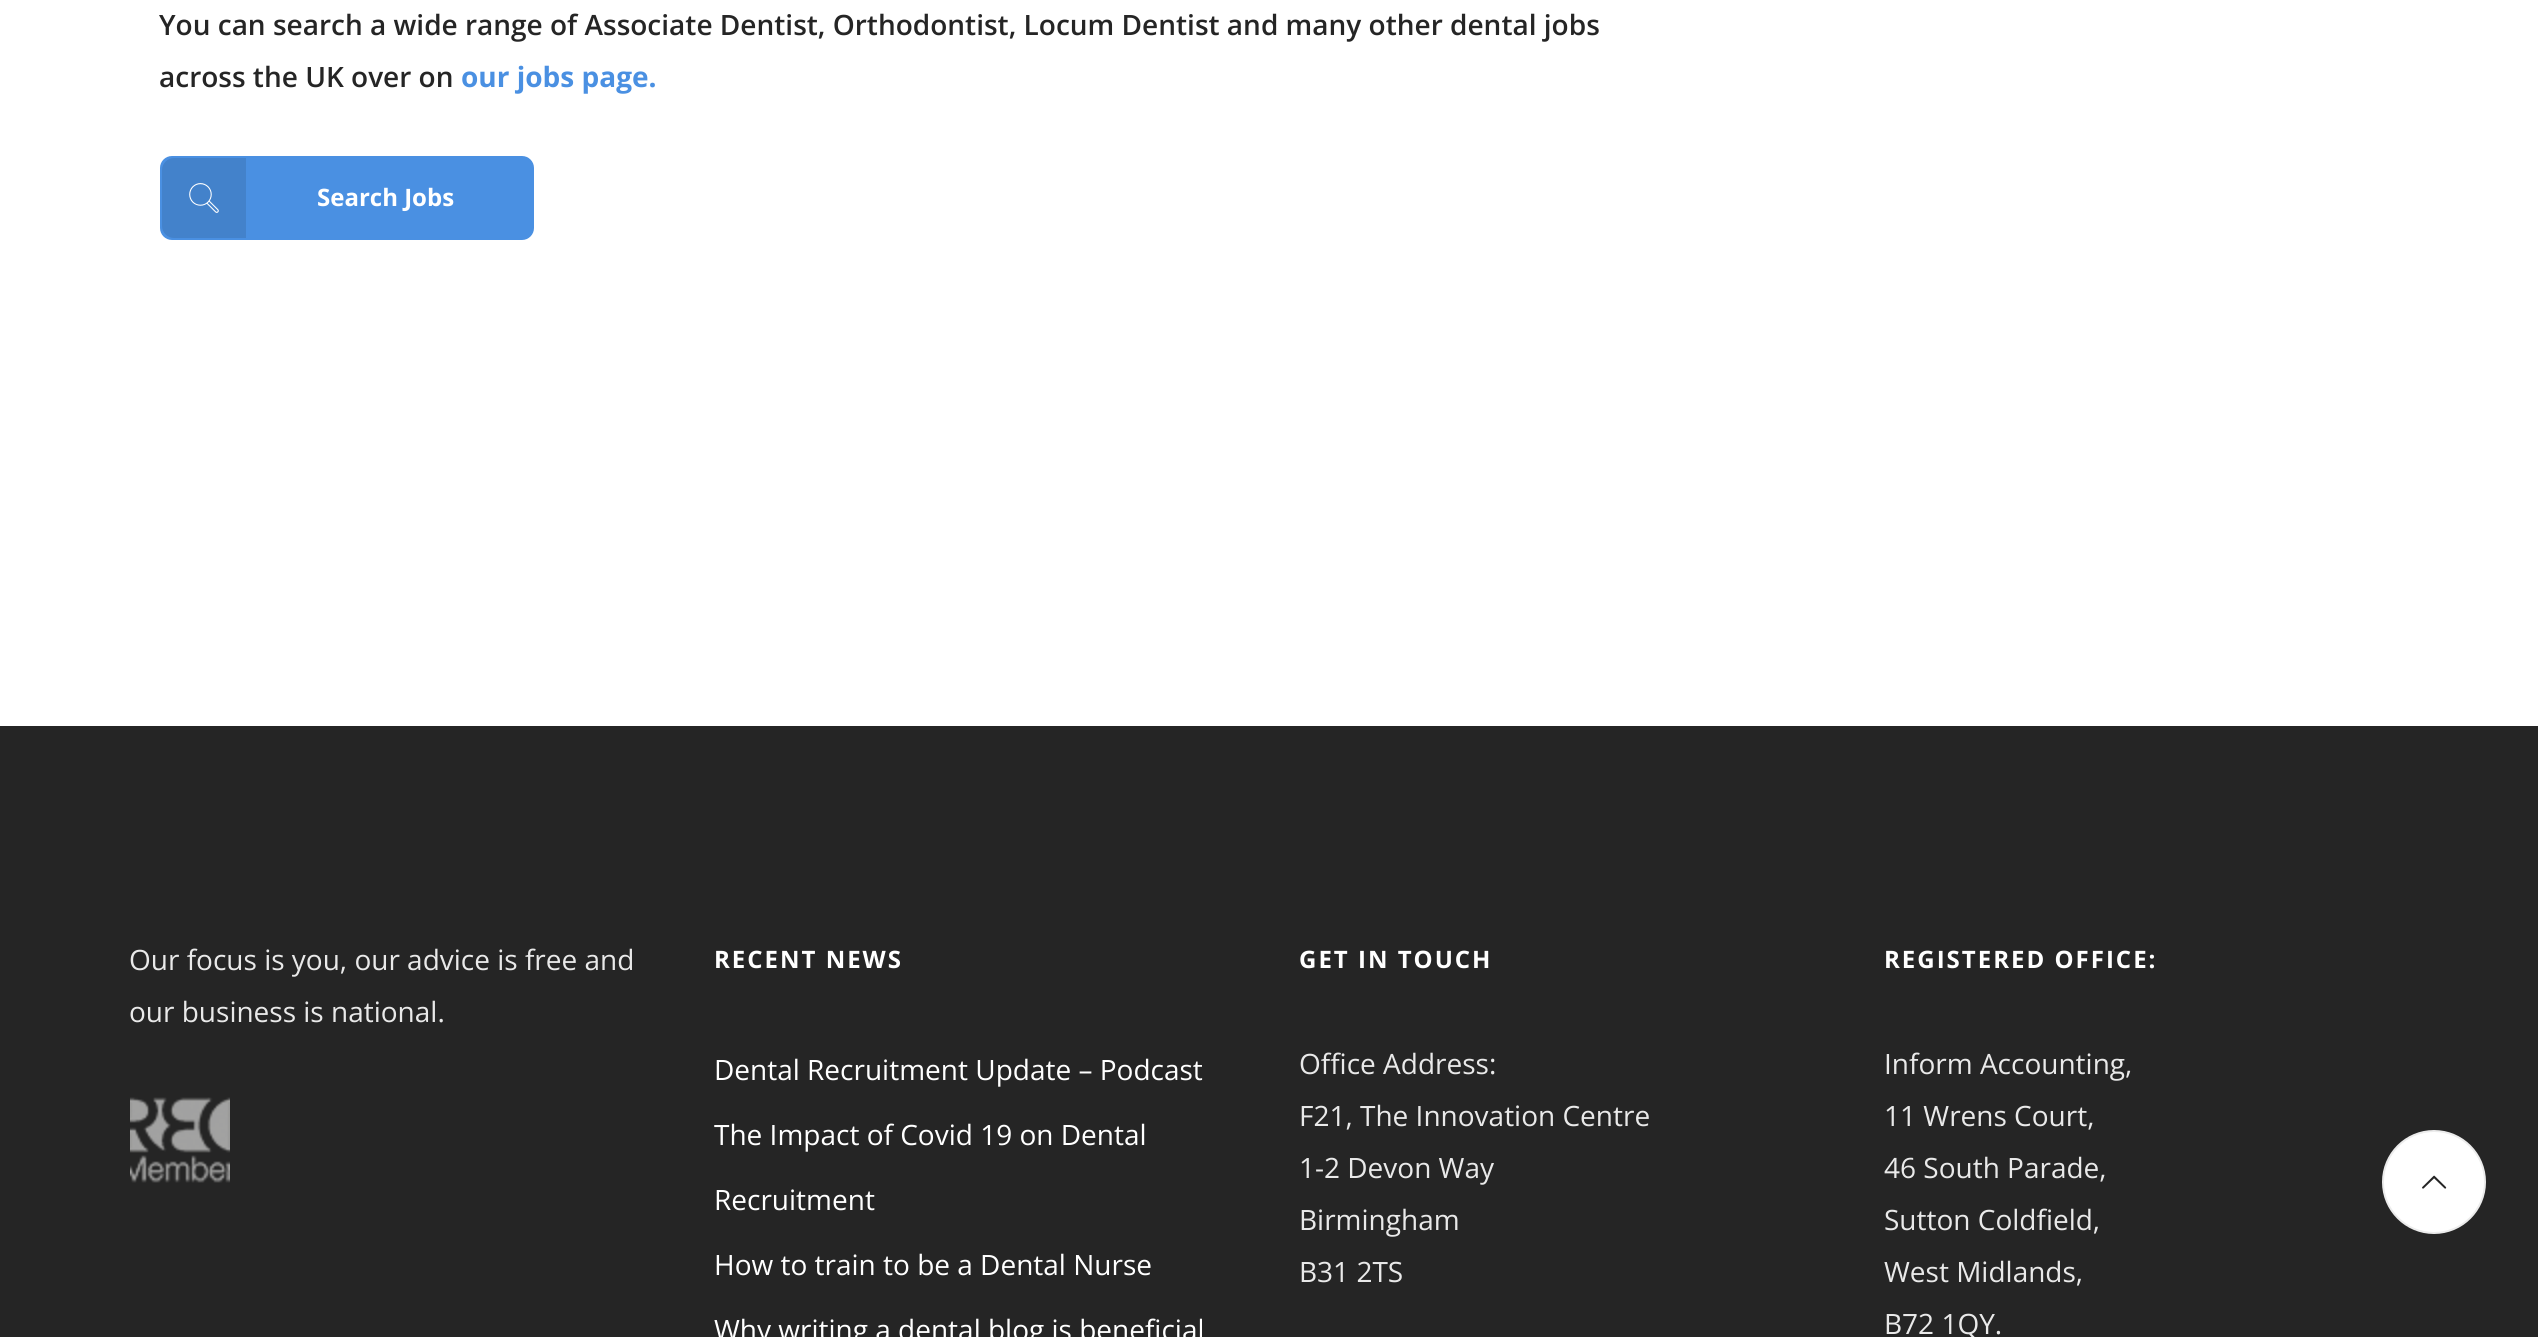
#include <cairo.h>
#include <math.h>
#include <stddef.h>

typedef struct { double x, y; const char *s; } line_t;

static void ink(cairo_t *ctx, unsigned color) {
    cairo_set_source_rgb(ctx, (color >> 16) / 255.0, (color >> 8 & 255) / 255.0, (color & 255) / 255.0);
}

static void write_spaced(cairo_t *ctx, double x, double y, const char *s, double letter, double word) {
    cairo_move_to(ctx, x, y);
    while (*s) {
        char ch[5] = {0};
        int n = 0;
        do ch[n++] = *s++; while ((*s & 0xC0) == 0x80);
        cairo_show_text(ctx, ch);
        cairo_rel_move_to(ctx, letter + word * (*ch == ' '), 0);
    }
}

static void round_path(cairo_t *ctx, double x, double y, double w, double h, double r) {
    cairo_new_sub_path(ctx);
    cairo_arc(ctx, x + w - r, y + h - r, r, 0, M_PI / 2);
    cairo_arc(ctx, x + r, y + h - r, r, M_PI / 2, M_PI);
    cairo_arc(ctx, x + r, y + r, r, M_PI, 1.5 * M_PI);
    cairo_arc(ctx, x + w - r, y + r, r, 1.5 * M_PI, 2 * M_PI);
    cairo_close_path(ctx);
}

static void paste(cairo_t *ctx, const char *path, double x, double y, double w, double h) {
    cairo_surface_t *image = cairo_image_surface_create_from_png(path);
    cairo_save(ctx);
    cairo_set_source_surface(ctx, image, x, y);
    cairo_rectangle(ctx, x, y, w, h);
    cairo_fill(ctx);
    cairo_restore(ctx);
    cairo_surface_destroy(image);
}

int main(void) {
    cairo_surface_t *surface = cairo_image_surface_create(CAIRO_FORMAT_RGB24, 2538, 1337);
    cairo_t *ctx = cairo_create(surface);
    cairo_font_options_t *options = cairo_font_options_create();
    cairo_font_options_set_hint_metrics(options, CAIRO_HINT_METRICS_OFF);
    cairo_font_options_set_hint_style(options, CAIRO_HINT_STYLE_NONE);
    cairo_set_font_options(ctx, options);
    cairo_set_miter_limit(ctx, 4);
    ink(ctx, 0xFFFFFF);
    cairo_paint(ctx);
    cairo_select_font_face(ctx, "Open Sans SemiBold", CAIRO_FONT_SLANT_NORMAL, CAIRO_FONT_WEIGHT_NORMAL);
    cairo_set_font_size(ctx, 28);
    ink(ctx, 0x252525);
    cairo_move_to(ctx, 159, 35);
    cairo_show_text(ctx, "You can search a wide range of Associate Dentist, Orthodontist, Locum Dentist and many other dental jobs");
    cairo_move_to(ctx, 159, 87);
    cairo_show_text(ctx, "across the UK over on");
    cairo_select_font_face(ctx, "Open Sans", CAIRO_FONT_SLANT_NORMAL, CAIRO_FONT_WEIGHT_BOLD);
    ink(ctx, 0x4A90E2);
    cairo_move_to(ctx, 461, 87);
    cairo_show_text(ctx, "our jobs page.");
    round_path(ctx, 161, 157, 372, 82, 11);
    cairo_fill_preserve(ctx);
    cairo_stroke(ctx);
    ink(ctx, 0x4382CB);
    cairo_new_path(ctx);
    cairo_move_to(ctx, 174, 158);
    cairo_line_to(ctx, 246, 158);
    cairo_line_to(ctx, 246, 238);
    cairo_line_to(ctx, 174, 238);
    cairo_curve_to(ctx, 167.5, 238, 162, 232.5, 162, 226);
    cairo_line_to(ctx, 162, 170);
    cairo_curve_to(ctx, 162, 163.5, 167.5, 158, 174, 158);
    cairo_close_path(ctx);
    cairo_fill(ctx);
    paste(ctx, "media/1.png", 189, 183, 30, 30);
    cairo_set_font_size(ctx, 24);
    ink(ctx, 0xFFFFFF);
    cairo_move_to(ctx, 317, 206);
    cairo_show_text(ctx, "Search Jobs");
    ink(ctx, 0x252525);
    cairo_rectangle(ctx, 0, 726, 2538, 611);
    cairo_fill(ctx);
    cairo_select_font_face(ctx, "Open Sans", CAIRO_FONT_SLANT_NORMAL, CAIRO_FONT_WEIGHT_NORMAL);
    cairo_set_font_size(ctx, 28);
    ink(ctx, 0xE9E9E9);
    cairo_move_to(ctx, 129, 970);
    cairo_show_text(ctx, "Our focus is you, our advice is free and");
    cairo_move_to(ctx, 129, 1022);
    cairo_show_text(ctx, "our business is national.");
    paste(ctx, "media/2.png", 130, 1097, 100, 86);
    cairo_select_font_face(ctx, "Open Sans", CAIRO_FONT_SLANT_NORMAL, CAIRO_FONT_WEIGHT_BOLD);
    cairo_set_font_size(ctx, 24);
    ink(ctx, 0xFFFFFF);
    write_spaced(ctx, 714, 968, "RECENT NEWS", 2, 0);
    cairo_select_font_face(ctx, "Open Sans", CAIRO_FONT_SLANT_NORMAL, CAIRO_FONT_WEIGHT_NORMAL);
    cairo_set_font_size(ctx, 28);
    {
        static const line_t items[] = {
            {714, 1080, "Dental Recruitment Update – Podcast"},
            {714, 1145, "The Impact of Covid 19 on Dental"},
            {714, 1210, "Recruitment"},
            {714, 1275, "How to train to be a Dental Nurse"},
            {714, 1340, "Why writing a dental blog is beneficial"},
        };
        for (size_t i = 0; i < sizeof items / sizeof *items; i++) {
            cairo_move_to(ctx, items[i].x, items[i].y);
            cairo_show_text(ctx, items[i].s);
        }
    }
    cairo_select_font_face(ctx, "Open Sans", CAIRO_FONT_SLANT_NORMAL, CAIRO_FONT_WEIGHT_BOLD);
    cairo_set_font_size(ctx, 24);
    write_spaced(ctx, 1299, 968, "GET IN TOUCH", 2, 0);
    cairo_select_font_face(ctx, "Open Sans", CAIRO_FONT_SLANT_NORMAL, CAIRO_FONT_WEIGHT_NORMAL);
    cairo_set_font_size(ctx, 28);
    ink(ctx, 0xE9E9E9);
    {
        static const line_t items[] = {
            {1299, 1074, "Office Address:"},
            {1299, 1126, "F21, The Innovation Centre"},
            {1299, 1178, "1-2 Devon Way"},
            {1299, 1230, "Birmingham"},
            {1299, 1282, "B31 2TS"},
        };
        for (size_t i = 0; i < sizeof items / sizeof *items; i++) {
            cairo_move_to(ctx, items[i].x, items[i].y);
            cairo_show_text(ctx, items[i].s);
        }
    }
    cairo_select_font_face(ctx, "Open Sans", CAIRO_FONT_SLANT_NORMAL, CAIRO_FONT_WEIGHT_BOLD);
    cairo_set_font_size(ctx, 24);
    ink(ctx, 0xFFFFFF);
    write_spaced(ctx, 1884, 968, "REGISTERED OFFICE:", 2, 0);
    cairo_select_font_face(ctx, "Open Sans", CAIRO_FONT_SLANT_NORMAL, CAIRO_FONT_WEIGHT_NORMAL);
    cairo_set_font_size(ctx, 28);
    ink(ctx, 0xE9E9E9);
    {
        static const line_t items[] = {
            {1884, 1074, "Inform Accounting,"},
            {1884, 1126, "11 Wrens Court,"},
            {1884, 1178, "46 South Parade,"},
            {1884, 1230, "Sutton Coldfield,"},
            {1884, 1282, "West Midlands,"},
            {1884, 1334, "B72 1QY."},
        };
        for (size_t i = 0; i < sizeof items / sizeof *items; i++) {
            cairo_move_to(ctx, items[i].x, items[i].y);
            cairo_show_text(ctx, items[i].s);
        }
    }
    ink(ctx, 0xFFFFFF);
    cairo_new_path(ctx);
    cairo_arc(ctx, 2434, 1182, 51, 0, 2 * M_PI);
    cairo_fill_preserve(ctx);
    ink(ctx, 0xECECEC);
    cairo_stroke(ctx);
    paste(ctx, "media/3.png", 2422, 1175, 25, 14);
    cairo_surface_write_to_png(surface, "image.png");
    cairo_font_options_destroy(options);
    cairo_destroy(ctx);
    cairo_surface_destroy(surface);
    return 0;
}
